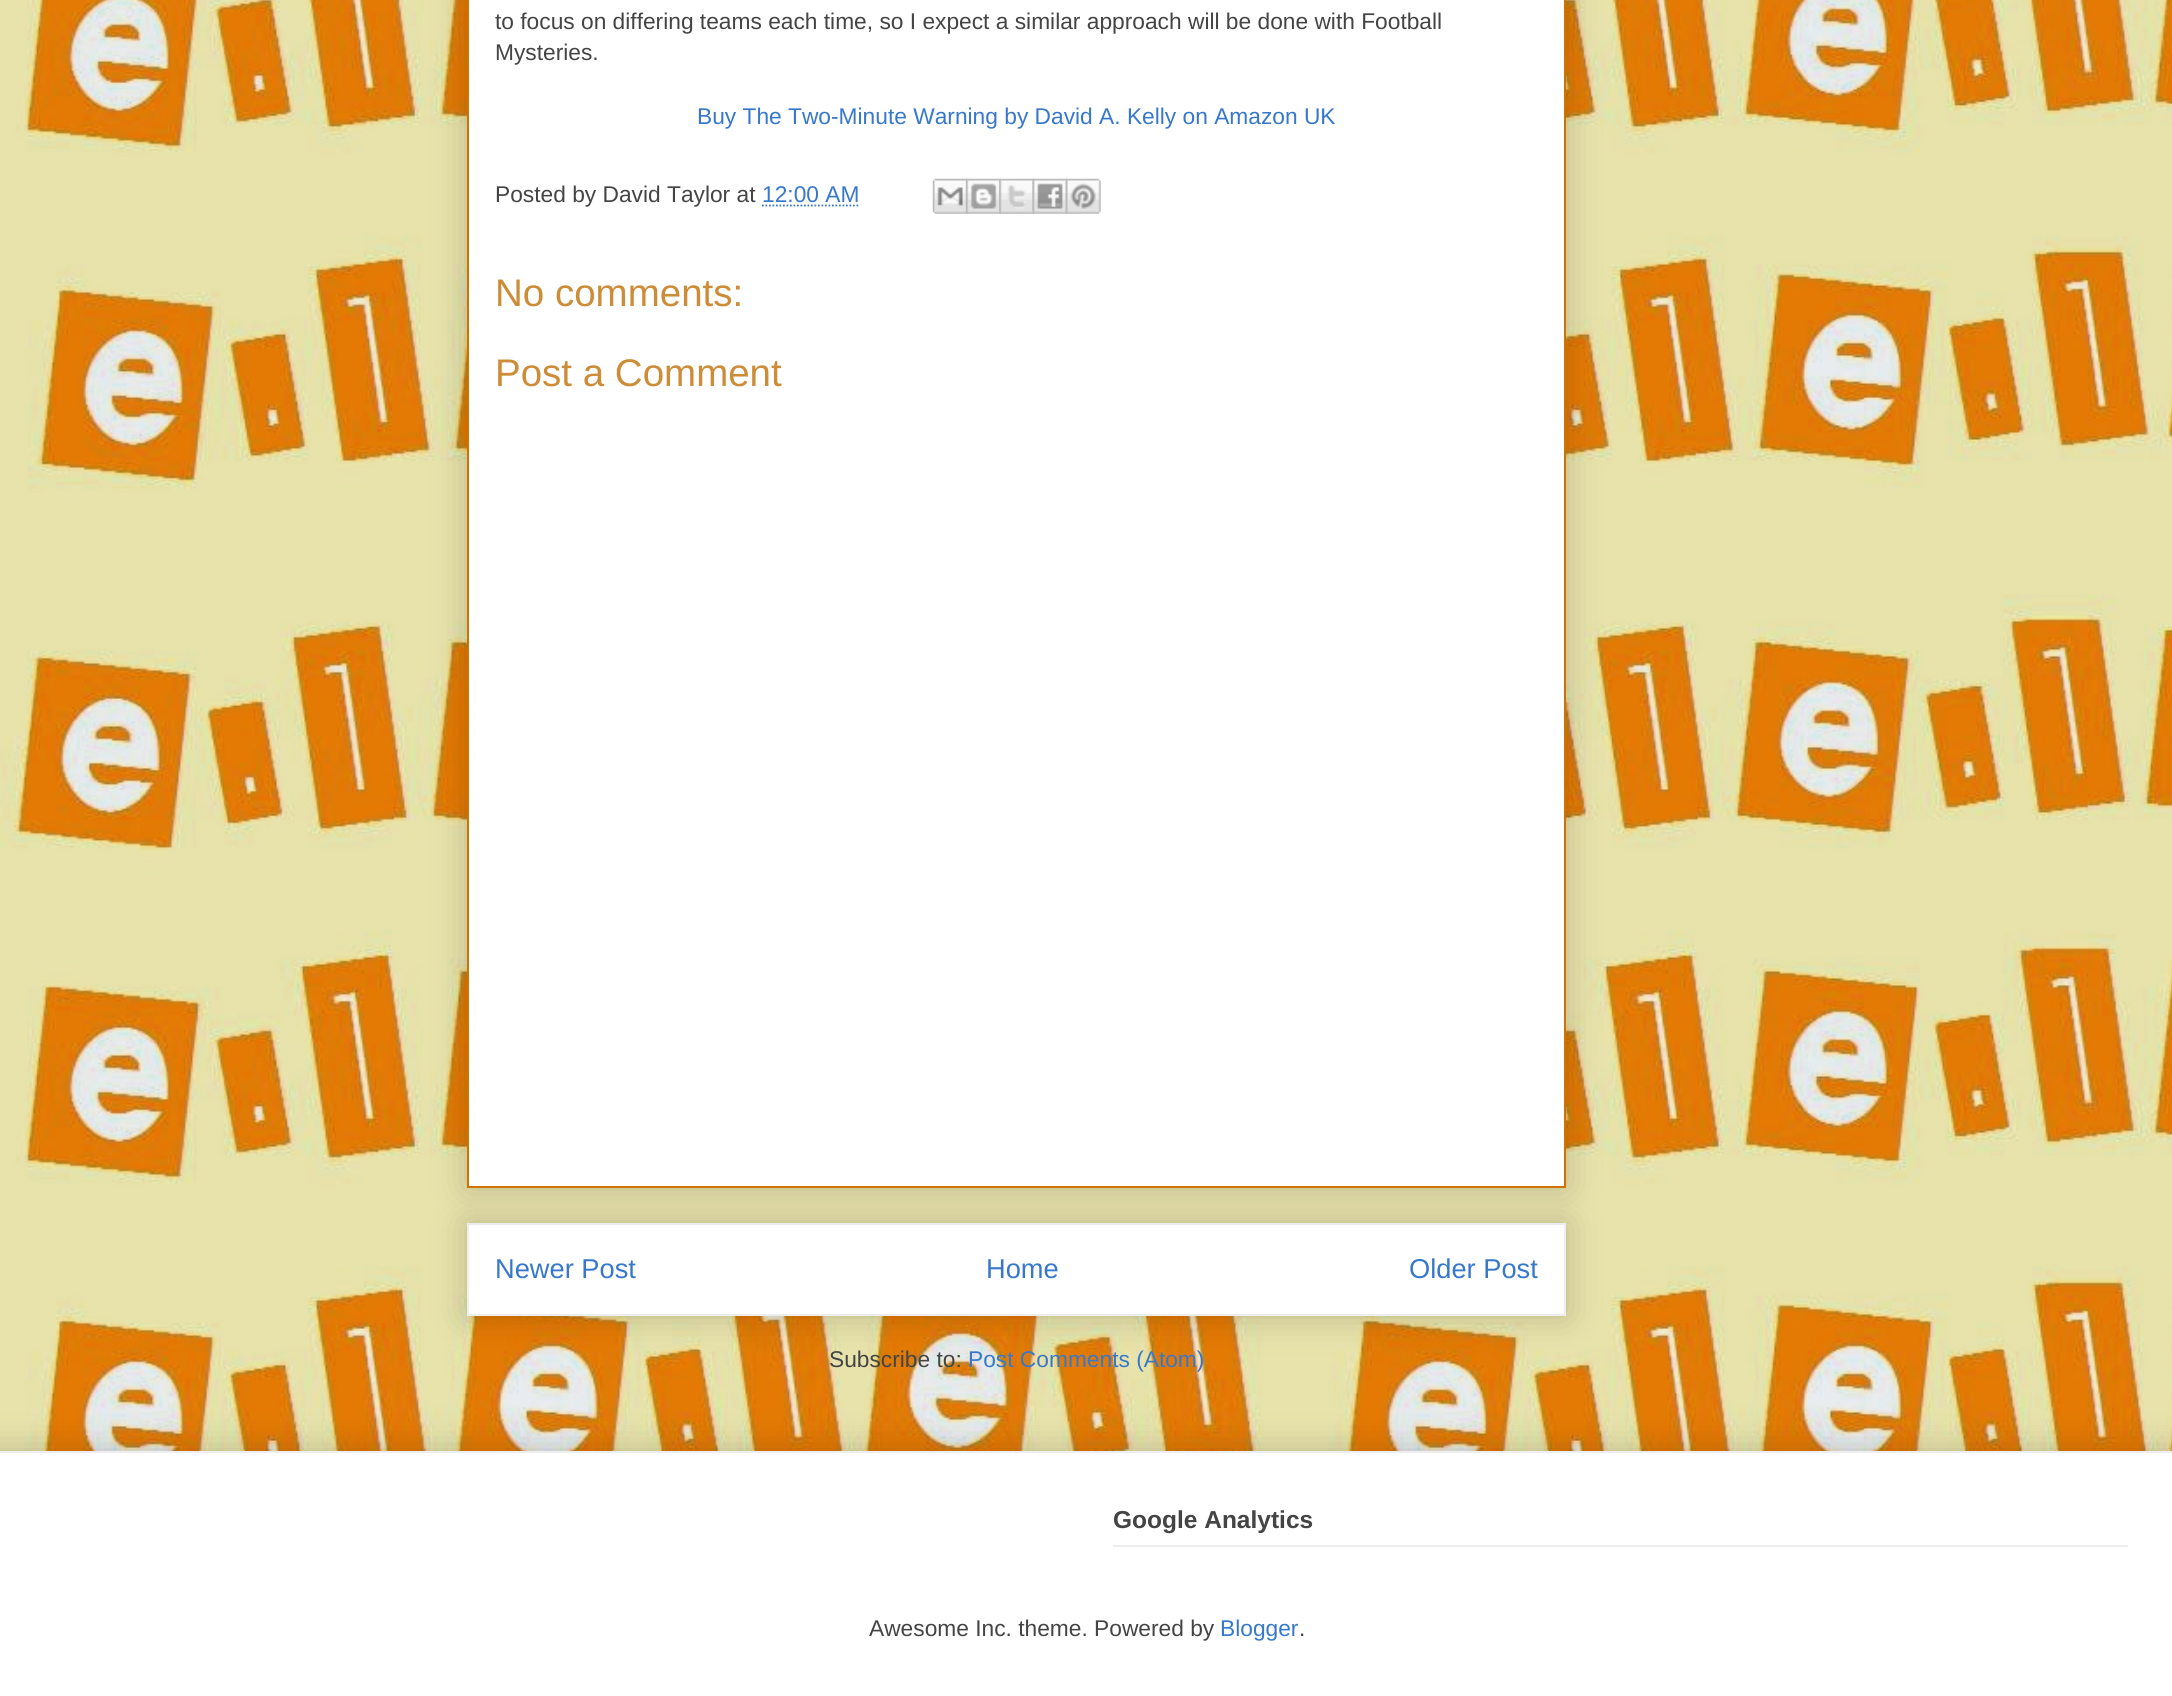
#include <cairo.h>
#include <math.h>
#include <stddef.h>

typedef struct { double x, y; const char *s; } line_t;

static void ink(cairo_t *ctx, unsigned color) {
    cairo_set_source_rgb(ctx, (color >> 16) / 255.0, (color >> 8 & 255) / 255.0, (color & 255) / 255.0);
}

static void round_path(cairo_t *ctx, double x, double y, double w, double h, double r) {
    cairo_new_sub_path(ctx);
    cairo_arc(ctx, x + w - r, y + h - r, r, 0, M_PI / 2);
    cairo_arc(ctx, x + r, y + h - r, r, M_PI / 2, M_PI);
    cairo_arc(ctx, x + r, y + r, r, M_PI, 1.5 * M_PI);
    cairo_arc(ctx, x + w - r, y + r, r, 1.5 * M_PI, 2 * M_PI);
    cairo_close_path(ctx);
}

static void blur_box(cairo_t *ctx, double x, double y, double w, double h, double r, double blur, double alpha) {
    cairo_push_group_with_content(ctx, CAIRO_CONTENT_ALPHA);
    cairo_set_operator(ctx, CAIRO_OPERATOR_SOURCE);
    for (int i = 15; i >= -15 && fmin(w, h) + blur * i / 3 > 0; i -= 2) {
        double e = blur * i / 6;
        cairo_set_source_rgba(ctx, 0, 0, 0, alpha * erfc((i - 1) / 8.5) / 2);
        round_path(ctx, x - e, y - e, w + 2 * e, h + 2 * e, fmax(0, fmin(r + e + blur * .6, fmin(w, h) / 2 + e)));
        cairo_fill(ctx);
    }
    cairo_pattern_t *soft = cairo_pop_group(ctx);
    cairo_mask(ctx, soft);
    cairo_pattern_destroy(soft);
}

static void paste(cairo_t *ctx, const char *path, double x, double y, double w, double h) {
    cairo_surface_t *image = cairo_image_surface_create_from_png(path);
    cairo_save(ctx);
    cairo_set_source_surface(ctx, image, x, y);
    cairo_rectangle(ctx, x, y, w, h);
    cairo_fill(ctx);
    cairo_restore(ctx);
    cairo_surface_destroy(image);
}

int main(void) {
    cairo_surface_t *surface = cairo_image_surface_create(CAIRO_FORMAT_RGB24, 2172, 1696);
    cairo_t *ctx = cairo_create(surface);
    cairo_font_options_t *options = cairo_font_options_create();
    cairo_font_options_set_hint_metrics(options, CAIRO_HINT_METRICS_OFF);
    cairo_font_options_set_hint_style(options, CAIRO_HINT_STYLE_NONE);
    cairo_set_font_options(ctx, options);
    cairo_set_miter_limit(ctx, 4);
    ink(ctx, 0xFFFFFF);
    cairo_paint(ctx);
    paste(ctx, "media/1.png", 0, 0, 2172, 1451);
    ink(ctx, 0x000000);
    blur_box(ctx, 467, 1223, 1099, 93, 0, 17.5, 0.2);
    ink(ctx, 0xFFFFFF);
    cairo_rectangle(ctx, 468, 1224, 1097, 91);
    cairo_fill_preserve(ctx);
    ink(ctx, 0xEEEEEE);
    cairo_stroke(ctx);
    ink(ctx, 0x000000);
    blur_box(ctx, 467, -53, 1099, 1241, 0, 17.5, 0.2);
    ink(ctx, 0xFFFFFF);
    cairo_rectangle(ctx, 468, -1, 1097, 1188);
    cairo_fill_preserve(ctx);
    ink(ctx, 0xCD7400);
    cairo_stroke(ctx);
    cairo_select_font_face(ctx, "Liberation Sans", CAIRO_FONT_SLANT_NORMAL, CAIRO_FONT_WEIGHT_NORMAL);
    cairo_set_font_size(ctx, 22.75);
    ink(ctx, 0x444444);
    cairo_move_to(ctx, 495, 29);
    cairo_show_text(ctx, "to focus on differing teams each time, so I expect a similar approach will be done with Football");
    cairo_move_to(ctx, 495, 60);
    cairo_show_text(ctx, "Mysteries.");
    ink(ctx, 0x3778CD);
    cairo_move_to(ctx, 697, 124);
    cairo_show_text(ctx, "Buy The Two-Minute Warning by David A. Kelly on Amazon UK");
    ink(ctx, 0x444444);
    cairo_move_to(ctx, 495, 202);
    cairo_show_text(ctx, "Posted by David Taylor at");
    ink(ctx, 0x3778CD);
    cairo_move_to(ctx, 762, 202);
    cairo_show_text(ctx, "12:00 AM");
    cairo_new_path(ctx);
    cairo_move_to(ctx, 762, 205.5);
    cairo_line_to(ctx, 859.5, 205.5);
    cairo_set_line_width(ctx, 1.8);
    cairo_set_dash(ctx, (double[]){1.75, 1.75}, 2, 0);
    cairo_stroke(ctx);
    paste(ctx, "media/2.png", 932, 178, 36, 36);
    paste(ctx, "media/3.png", 966, 178, 35, 36);
    paste(ctx, "media/4.png", 999, 178, 36, 36);
    paste(ctx, "media/5.png", 1032, 178, 36, 36);
    paste(ctx, "media/6.png", 1065, 178, 36, 36);
    cairo_set_font_size(ctx, 38.5);
    ink(ctx, 0xCD8C37);
    cairo_move_to(ctx, 495, 306);
    cairo_show_text(ctx, "No comments:");
    cairo_move_to(ctx, 495, 386);
    cairo_show_text(ctx, "Post a Comment");
    cairo_set_font_size(ctx, 27.25);
    ink(ctx, 0x3778CD);
    {
        static const line_t items[] = {
            {495, 1278, "Newer Post"},
            {986, 1278, "Home"},
            {1409, 1278, "Older Post"},
        };
        for (size_t i = 0; i < sizeof items / sizeof *items; i++) {
            cairo_move_to(ctx, items[i].x, items[i].y);
            cairo_show_text(ctx, items[i].s);
        }
    }
    cairo_set_font_size(ctx, 22.75);
    ink(ctx, 0x444444);
    cairo_move_to(ctx, 829, 1367);
    cairo_show_text(ctx, "Subscribe to:");
    ink(ctx, 0x3778CD);
    cairo_move_to(ctx, 968, 1367);
    cairo_show_text(ctx, "Post Comments (Atom)");
    ink(ctx, 0x000000);
    blur_box(ctx, -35, 1451, 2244, 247, 0, 17.5, 0.2);
    ink(ctx, 0xFFFFFF);
    cairo_rectangle(ctx, 0, 1453, 2172, 243);
    cairo_fill(ctx);
    ink(ctx, 0xEEEEEE);
    cairo_rectangle(ctx, 0, 1451, 2172, 2);
    cairo_fill(ctx);
    cairo_select_font_face(ctx, "Liberation Sans", CAIRO_FONT_SLANT_NORMAL, CAIRO_FONT_WEIGHT_BOLD);
    cairo_set_font_size(ctx, 24.5);
    ink(ctx, 0x444444);
    cairo_move_to(ctx, 1113, 1528);
    cairo_show_text(ctx, "Google Analytics");
    ink(ctx, 0xEEEEEE);
    cairo_rectangle(ctx, 1113, 1545, 1015, 2);
    cairo_fill(ctx);
    cairo_select_font_face(ctx, "Liberation Sans", CAIRO_FONT_SLANT_NORMAL, CAIRO_FONT_WEIGHT_NORMAL);
    cairo_set_font_size(ctx, 22.75);
    ink(ctx, 0x444444);
    cairo_move_to(ctx, 869, 1636);
    cairo_show_text(ctx, "Awesome Inc. theme. Powered by");
    ink(ctx, 0x3778CD);
    cairo_move_to(ctx, 1220, 1636);
    cairo_show_text(ctx, "Blogger");
    ink(ctx, 0x444444);
    cairo_move_to(ctx, 1299, 1636);
    cairo_show_text(ctx, ".");
    cairo_surface_write_to_png(surface, "image.png");
    cairo_font_options_destroy(options);
    cairo_destroy(ctx);
    cairo_surface_destroy(surface);
    return 0;
}
